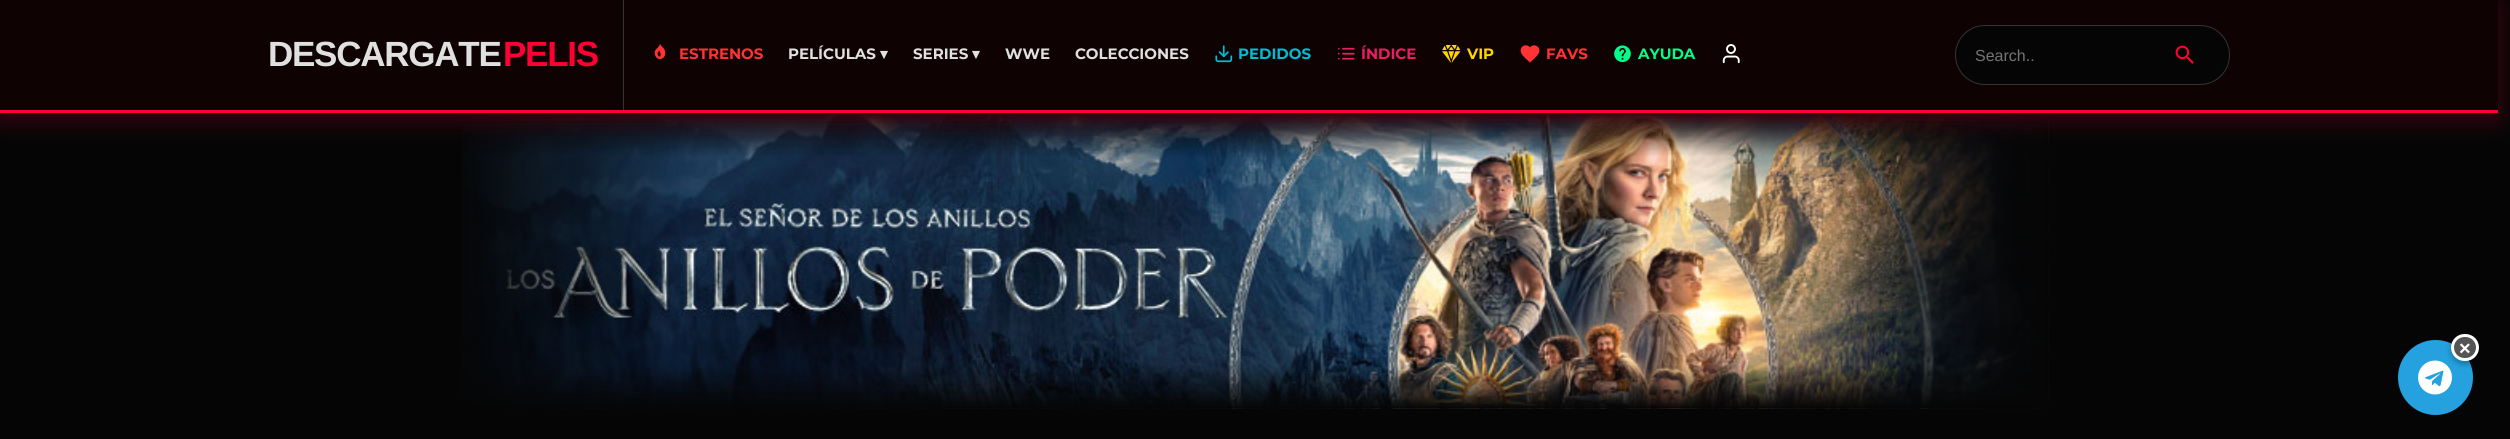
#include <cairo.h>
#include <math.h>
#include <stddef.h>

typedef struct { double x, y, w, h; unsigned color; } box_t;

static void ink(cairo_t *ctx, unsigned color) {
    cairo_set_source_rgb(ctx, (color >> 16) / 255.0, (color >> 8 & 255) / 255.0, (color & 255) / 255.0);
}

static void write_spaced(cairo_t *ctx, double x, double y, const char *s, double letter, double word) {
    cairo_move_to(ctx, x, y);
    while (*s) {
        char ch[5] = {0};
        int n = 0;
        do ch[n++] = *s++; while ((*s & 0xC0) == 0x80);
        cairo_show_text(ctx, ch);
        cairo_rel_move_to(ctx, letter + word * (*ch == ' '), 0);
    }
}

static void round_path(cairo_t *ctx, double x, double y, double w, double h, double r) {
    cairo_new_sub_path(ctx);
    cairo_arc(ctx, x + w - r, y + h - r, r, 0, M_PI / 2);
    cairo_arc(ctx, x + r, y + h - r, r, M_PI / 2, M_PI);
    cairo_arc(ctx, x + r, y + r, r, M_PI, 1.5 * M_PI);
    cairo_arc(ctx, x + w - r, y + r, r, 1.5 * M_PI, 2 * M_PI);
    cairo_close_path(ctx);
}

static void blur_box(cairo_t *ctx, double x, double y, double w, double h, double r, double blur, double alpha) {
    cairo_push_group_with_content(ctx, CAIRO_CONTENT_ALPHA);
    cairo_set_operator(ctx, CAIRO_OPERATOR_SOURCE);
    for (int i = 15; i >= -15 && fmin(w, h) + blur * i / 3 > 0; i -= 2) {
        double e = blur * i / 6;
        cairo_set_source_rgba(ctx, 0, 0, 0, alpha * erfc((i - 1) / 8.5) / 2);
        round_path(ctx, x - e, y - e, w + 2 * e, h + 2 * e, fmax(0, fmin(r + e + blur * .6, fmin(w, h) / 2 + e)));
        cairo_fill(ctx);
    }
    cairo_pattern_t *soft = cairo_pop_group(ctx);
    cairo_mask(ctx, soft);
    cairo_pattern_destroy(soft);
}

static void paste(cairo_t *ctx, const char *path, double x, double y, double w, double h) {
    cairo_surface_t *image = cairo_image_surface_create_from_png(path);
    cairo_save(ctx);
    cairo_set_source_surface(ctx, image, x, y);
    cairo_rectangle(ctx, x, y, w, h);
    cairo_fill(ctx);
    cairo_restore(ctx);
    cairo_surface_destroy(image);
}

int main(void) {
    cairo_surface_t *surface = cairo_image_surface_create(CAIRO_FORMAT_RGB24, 2510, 439);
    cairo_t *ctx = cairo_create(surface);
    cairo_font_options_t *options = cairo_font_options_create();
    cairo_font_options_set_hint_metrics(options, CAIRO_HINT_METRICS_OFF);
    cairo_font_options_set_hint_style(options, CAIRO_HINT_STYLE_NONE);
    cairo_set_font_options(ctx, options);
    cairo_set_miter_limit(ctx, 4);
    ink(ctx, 0x050505);
    cairo_paint(ctx);
    paste(ctx, "media/9.png", 462, 113, 1587, 296);
    ink(ctx, 0xFF0033);
    blur_box(ctx, 0, 6, 2498, 113, 0, 12.5, 0.25);
    {
        static const box_t items[] = {
            {0, 0, 2498, 110, 0x0F0202},
            {0, 110, 2498, 3, 0xFF0033},
            {623, 0, 1, 110, 0x333333},
        };
        for (size_t i = 0; i < sizeof items / sizeof *items; i++) {
            ink(ctx, items[i].color);
            cairo_rectangle(ctx, items[i].x, items[i].y, items[i].w, items[i].h);
            cairo_fill(ctx);
        }
    }
    cairo_select_font_face(ctx, "Liberation Sans", CAIRO_FONT_SLANT_NORMAL, CAIRO_FONT_WEIGHT_BOLD);
    cairo_set_font_size(ctx, 35);
    ink(ctx, 0xE0E0E0);
    write_spaced(ctx, 268, 66, "DESCARGATE", -1.25, 0);
    ink(ctx, 0xFF0033);
    write_spaced(ctx, 503, 66, "PELIS", -1.25, 0);
    paste(ctx, "media/1.png", 654, 44, 12, 15);
    cairo_select_font_face(ctx, "Montserrat", CAIRO_FONT_SLANT_NORMAL, CAIRO_FONT_WEIGHT_BOLD);
    cairo_set_font_size(ctx, 15);
    ink(ctx, 0xFF3333);
    cairo_move_to(ctx, 679, 59);
    cairo_show_text(ctx, "ESTRENOS");
    ink(ctx, 0xE0E0E0);
    cairo_move_to(ctx, 788, 59);
    cairo_show_text(ctx, "PELÍCULAS");
    cairo_select_font_face(ctx, "DejaVu Sans", CAIRO_FONT_SLANT_NORMAL, CAIRO_FONT_WEIGHT_BOLD);
    cairo_move_to(ctx, 880, 59);
    cairo_show_text(ctx, "▾");
    cairo_select_font_face(ctx, "Montserrat", CAIRO_FONT_SLANT_NORMAL, CAIRO_FONT_WEIGHT_BOLD);
    cairo_move_to(ctx, 913, 59);
    cairo_show_text(ctx, "SERIES");
    cairo_select_font_face(ctx, "DejaVu Sans", CAIRO_FONT_SLANT_NORMAL, CAIRO_FONT_WEIGHT_BOLD);
    cairo_move_to(ctx, 972, 59);
    cairo_show_text(ctx, "▾");
    cairo_select_font_face(ctx, "Montserrat", CAIRO_FONT_SLANT_NORMAL, CAIRO_FONT_WEIGHT_BOLD);
    cairo_move_to(ctx, 1005, 59);
    cairo_show_text(ctx, "WWE");
    cairo_move_to(ctx, 1075, 59);
    cairo_show_text(ctx, "COLECCIONES");
    paste(ctx, "media/2.png", 1215, 45, 18, 18);
    ink(ctx, 0x00BCD4);
    cairo_move_to(ctx, 1238, 59);
    cairo_show_text(ctx, "PEDIDOS");
    paste(ctx, "media/3.png", 1337, 47, 18, 13);
    ink(ctx, 0xE91E63);
    cairo_move_to(ctx, 1361, 59);
    cairo_show_text(ctx, "ÍNDICE");
    paste(ctx, "media/4.png", 1442, 45, 19, 18);
    ink(ctx, 0xFFD700);
    cairo_move_to(ctx, 1467, 59);
    cairo_show_text(ctx, "VIP");
    paste(ctx, "media/5.png", 1520, 45, 20, 18);
    ink(ctx, 0xFF3333);
    cairo_move_to(ctx, 1546, 59);
    cairo_show_text(ctx, "FAVS");
    paste(ctx, "media/6.png", 1614, 45, 17, 18);
    ink(ctx, 0x00FF88);
    cairo_move_to(ctx, 1638, 59);
    cairo_show_text(ctx, "AYUDA");
    paste(ctx, "media/7.png", 1722, 44, 18, 20);
    ink(ctx, 0x050505);
    round_path(ctx, 1955.5, 25.5, 274, 59, 29.5);
    cairo_fill_preserve(ctx);
    ink(ctx, 0x333333);
    cairo_set_line_width(ctx, 1);
    cairo_stroke(ctx);
    cairo_select_font_face(ctx, "Liberation Sans", CAIRO_FONT_SLANT_NORMAL, CAIRO_FONT_WEIGHT_NORMAL);
    cairo_set_font_size(ctx, 16);
    ink(ctx, 0x757575);
    cairo_move_to(ctx, 1975, 61);
    cairo_show_text(ctx, "Search..");
    paste(ctx, "media/8.png", 2175, 45, 19, 19);
    ink(ctx, 0x24A1DE);
    cairo_arc(ctx, 2435.5, 377.5, 37.5, 0, 2 * M_PI);
    cairo_fill(ctx);
    paste(ctx, "media/10.png", 2418, 360, 34, 35);
    ink(ctx, 0x000000);
    blur_box(ctx, 2451, 336, 28, 28, 14, 3, 0.3);
    ink(ctx, 0x555555);
    round_path(ctx, 2452.5, 335.5, 25, 24, 12);
    cairo_fill_preserve(ctx);
    ink(ctx, 0xFFFFFF);
    cairo_set_line_width(ctx, 3);
    cairo_stroke(ctx);
    cairo_select_font_face(ctx, "Liberation Sans", CAIRO_FONT_SLANT_NORMAL, CAIRO_FONT_WEIGHT_BOLD);
    cairo_set_font_size(ctx, 20);
    cairo_move_to(ctx, 2459, 355);
    cairo_show_text(ctx, "×");
    cairo_surface_write_to_png(surface, "image.png");
    cairo_font_options_destroy(options);
    cairo_destroy(ctx);
    cairo_surface_destroy(surface);
    return 0;
}
